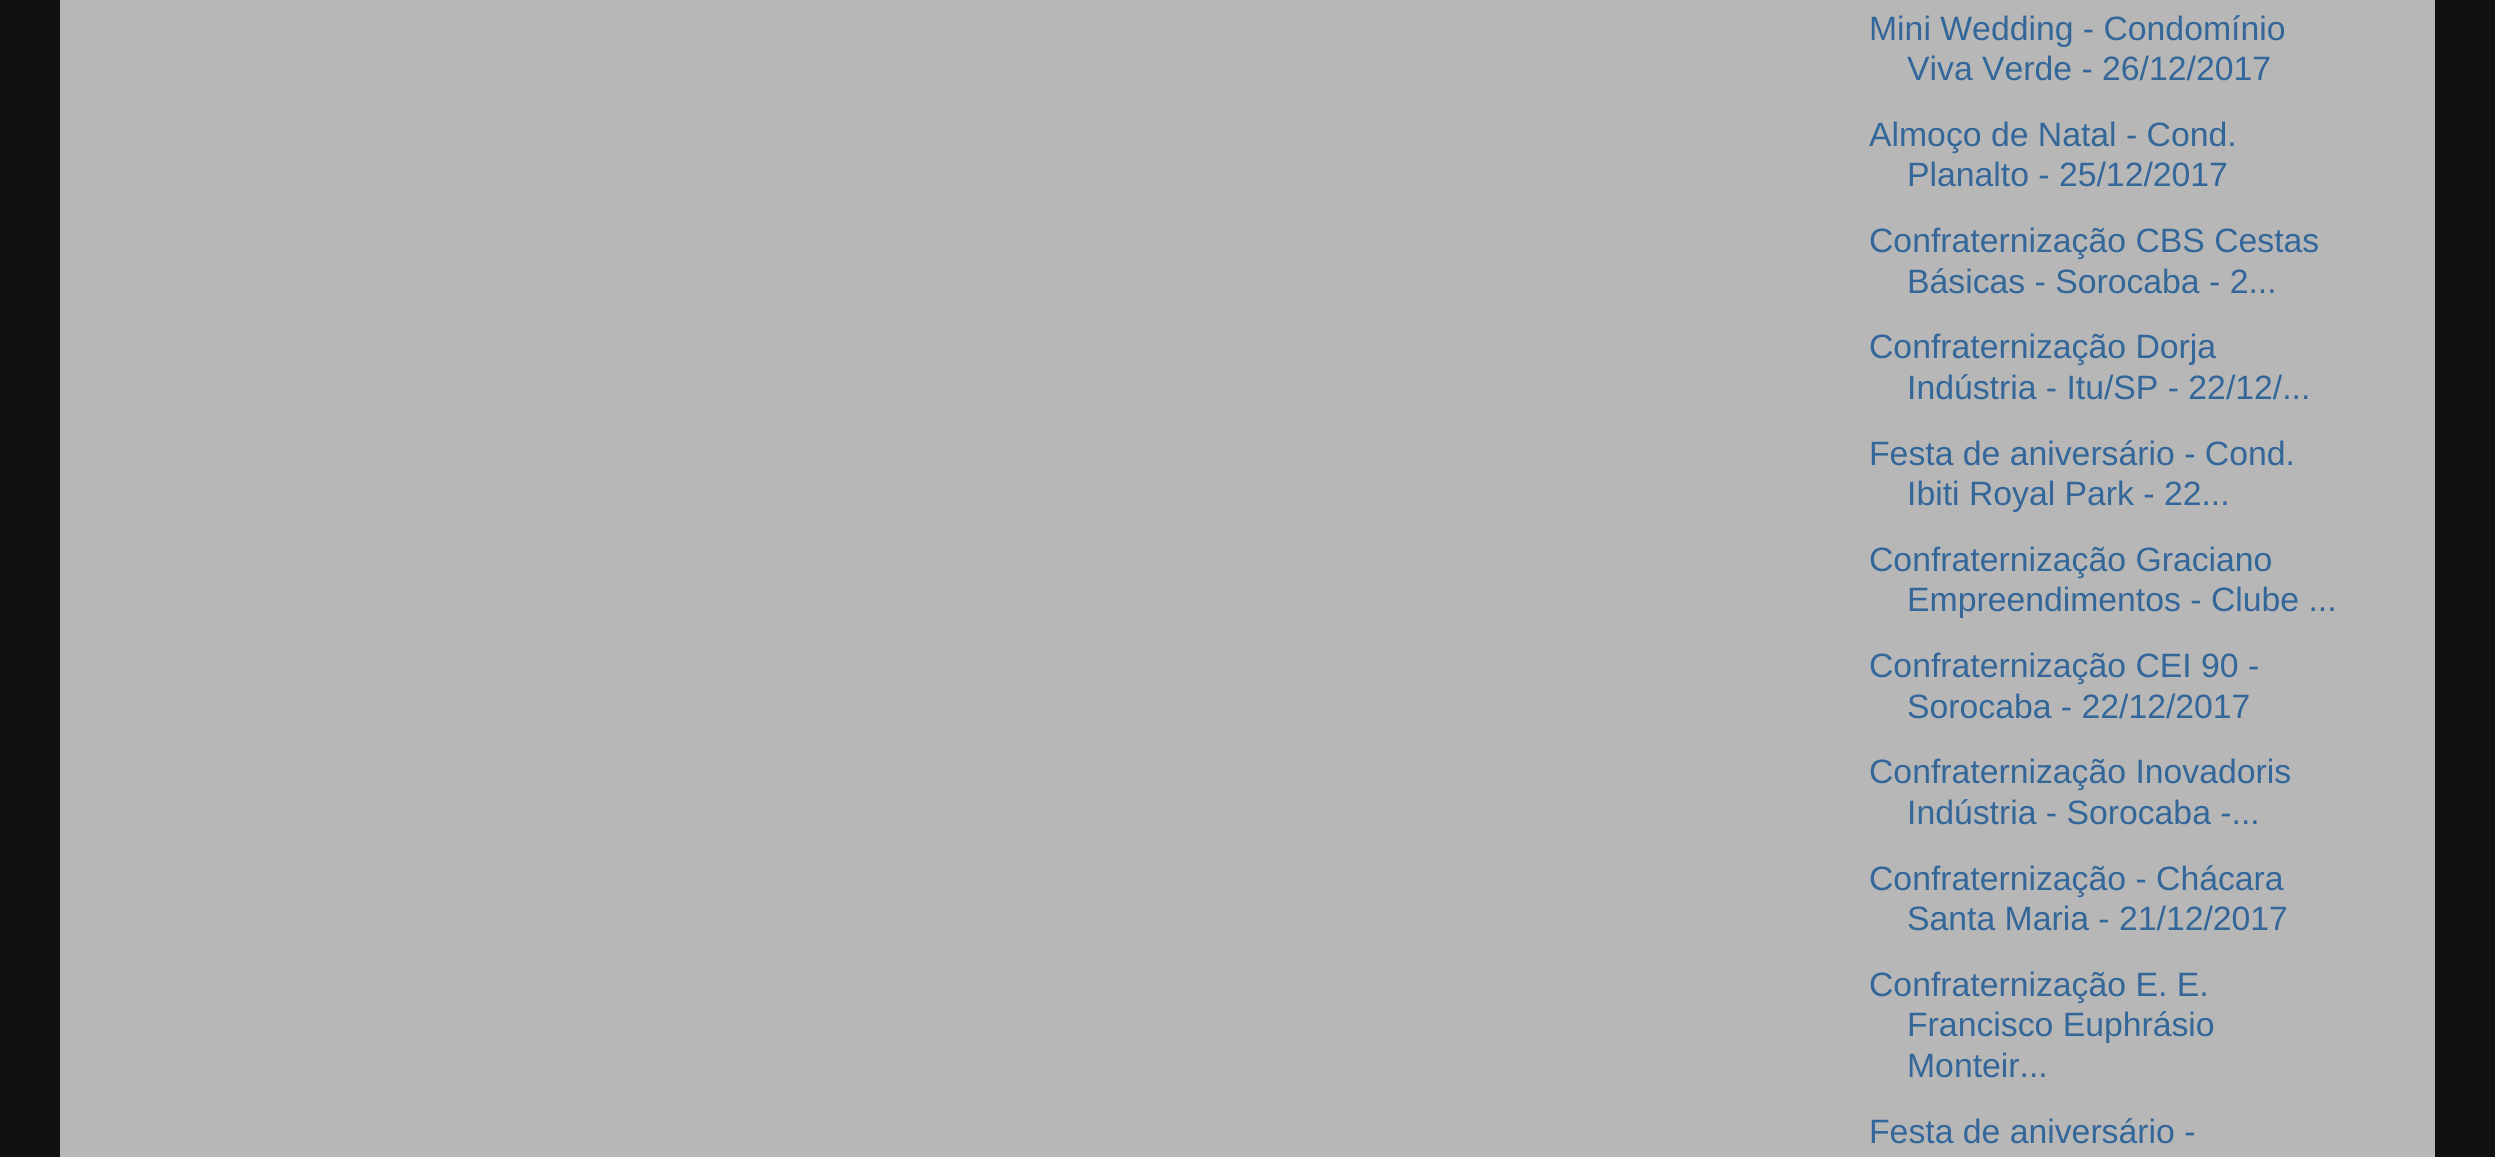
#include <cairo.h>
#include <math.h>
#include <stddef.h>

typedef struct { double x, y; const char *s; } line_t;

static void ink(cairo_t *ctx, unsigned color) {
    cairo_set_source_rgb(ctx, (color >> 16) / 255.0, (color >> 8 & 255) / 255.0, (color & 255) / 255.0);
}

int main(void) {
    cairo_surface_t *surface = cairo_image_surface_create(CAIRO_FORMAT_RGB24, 2495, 1157);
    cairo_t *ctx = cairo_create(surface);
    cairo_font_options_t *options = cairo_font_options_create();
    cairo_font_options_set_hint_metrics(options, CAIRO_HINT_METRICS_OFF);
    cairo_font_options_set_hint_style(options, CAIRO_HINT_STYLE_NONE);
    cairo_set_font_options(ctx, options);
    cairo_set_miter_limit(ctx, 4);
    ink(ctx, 0x111111);
    cairo_paint(ctx);
    ink(ctx, 0xB7B7B7);
    cairo_rectangle(ctx, 60, 0, 2375, 1157);
    cairo_fill(ctx);
    cairo_select_font_face(ctx, "Liberation Sans", CAIRO_FONT_SLANT_NORMAL, CAIRO_FONT_WEIGHT_NORMAL);
    cairo_set_font_size(ctx, 33.75);
    ink(ctx, 0x336699);
    {
        static const line_t items[] = {
            {1869, 40, "Mini Wedding - Condomínio"},
            {1907, 80, "Viva Verde - 26/12/2017"},
            {1869, 146, "Almoço de Natal - Cond."},
            {1907, 186, "Planalto - 25/12/2017"},
            {1869, 252, "Confraternização CBS Cestas"},
            {1907, 293, "Básicas - Sorocaba - 2..."},
            {1869, 358, "Confraternização Dorja"},
            {1907, 399, "Indústria - Itu/SP - 22/12/..."},
            {1869, 465, "Festa de aniversário - Cond."},
            {1907, 505, "Ibiti Royal Park - 22..."},
            {1869, 571, "Confraternização Graciano"},
            {1907, 611, "Empreendimentos - Clube ..."},
            {1869, 677, "Confraternização CEI 90 -"},
            {1907, 718, "Sorocaba - 22/12/2017"},
            {1869, 783, "Confraternização Inovadoris"},
            {1907, 824, "Indústria - Sorocaba -..."},
            {1869, 890, "Confraternização - Chácara"},
            {1907, 930, "Santa Maria - 21/12/2017"},
            {1869, 996, "Confraternização E. E."},
            {1907, 1036, "Francisco Euphrásio"},
            {1907, 1077, "Monteir..."},
            {1869, 1143, "Festa de aniversário -"},
        };
        for (size_t i = 0; i < sizeof items / sizeof *items; i++) {
            cairo_move_to(ctx, items[i].x, items[i].y);
            cairo_show_text(ctx, items[i].s);
        }
    }
    cairo_surface_write_to_png(surface, "image.png");
    cairo_font_options_destroy(options);
    cairo_destroy(ctx);
    cairo_surface_destroy(surface);
    return 0;
}
